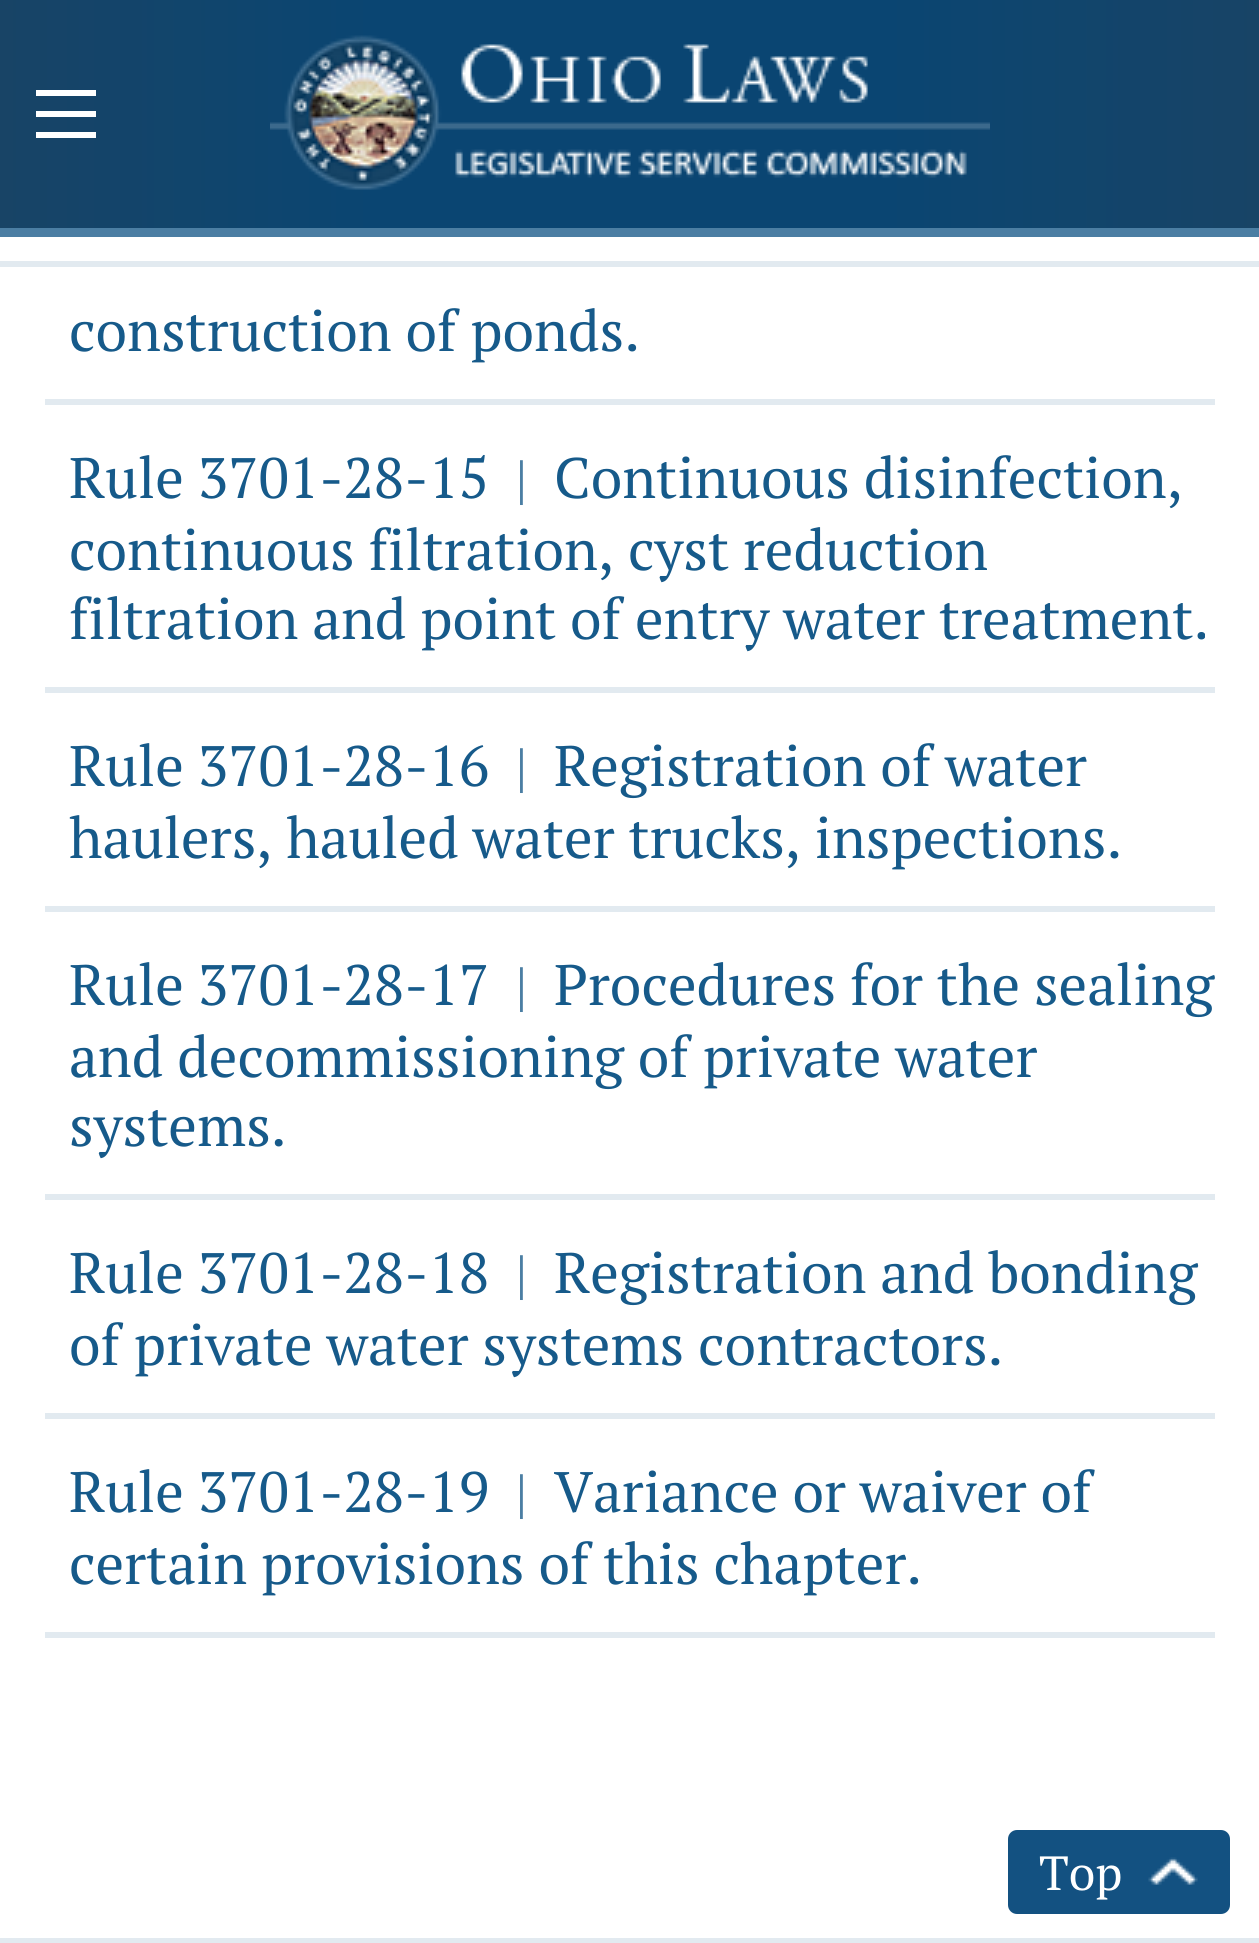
#include <cairo.h>
#include <math.h>
#include <stddef.h>

typedef struct { double x, y; const char *s; } line_t;
typedef struct { double x, y, w, h; unsigned color; } box_t;

static void ink(cairo_t *ctx, unsigned color) {
    cairo_set_source_rgb(ctx, (color >> 16) / 255.0, (color >> 8 & 255) / 255.0, (color & 255) / 255.0);
}

static void round_path(cairo_t *ctx, double x, double y, double w, double h, double r) {
    cairo_new_sub_path(ctx);
    cairo_arc(ctx, x + w - r, y + h - r, r, 0, M_PI / 2);
    cairo_arc(ctx, x + r, y + h - r, r, M_PI / 2, M_PI);
    cairo_arc(ctx, x + r, y + r, r, M_PI, 1.5 * M_PI);
    cairo_arc(ctx, x + w - r, y + r, r, 1.5 * M_PI, 2 * M_PI);
    cairo_close_path(ctx);
}

static void paste(cairo_t *ctx, const char *path, double x, double y, double w, double h) {
    cairo_surface_t *image = cairo_image_surface_create_from_png(path);
    cairo_save(ctx);
    cairo_set_source_surface(ctx, image, x, y);
    cairo_rectangle(ctx, x, y, w, h);
    cairo_fill(ctx);
    cairo_restore(ctx);
    cairo_surface_destroy(image);
}

int main(void) {
    cairo_surface_t *surface = cairo_image_surface_create(CAIRO_FORMAT_RGB24, 1259, 1943);
    cairo_t *ctx = cairo_create(surface);
    cairo_font_options_t *options = cairo_font_options_create();
    cairo_font_options_set_hint_metrics(options, CAIRO_HINT_METRICS_OFF);
    cairo_font_options_set_hint_style(options, CAIRO_HINT_STYLE_NONE);
    cairo_set_font_options(ctx, options);
    cairo_set_miter_limit(ctx, 4);
    cairo_pattern_t *gradient;
    ink(ctx, 0xFFFFFF);
    cairo_paint(ctx);
    gradient = cairo_pattern_create_linear(0, 114, 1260, 114);
    cairo_pattern_add_color_stop_rgba(gradient, 0, 0.094, 0.267, 0.4, 1);
    cairo_pattern_add_color_stop_rgba(gradient, 0.3, 0.039, 0.271, 0.447, 1);
    cairo_pattern_add_color_stop_rgba(gradient, 0.7, 0.039, 0.271, 0.447, 1);
    cairo_pattern_add_color_stop_rgba(gradient, 1, 0.094, 0.267, 0.4, 1);
    cairo_set_source(ctx, gradient);
    cairo_pattern_destroy(gradient);
    cairo_rectangle(ctx, 0, 0, 1259, 228);
    cairo_fill(ctx);
    paste(ctx, "media/1.png", 270, 35, 720, 155);
    {
        static const box_t items[] = {
            {0, 261, 1259, 6, 0xE2EAF0},
            {0, 228, 1259, 9, 0x4B7EA3},
            {36, 90, 60, 6, 0xFFFFFF},
            {36, 111, 60, 6, 0xFFFFFF},
            {36, 132, 60, 6, 0xFFFFFF},
            {45, 399, 1170, 6, 0xE2EAF0},
        };
        for (size_t i = 0; i < sizeof items / sizeof *items; i++) {
            ink(ctx, items[i].color);
            cairo_rectangle(ctx, items[i].x, items[i].y, items[i].w, items[i].h);
            cairo_fill(ctx);
        }
    }
    cairo_select_font_face(ctx, "PT Serif", CAIRO_FONT_SLANT_NORMAL, CAIRO_FONT_WEIGHT_NORMAL);
    cairo_set_font_size(ctx, 57);
    ink(ctx, 0x165A8A);
    cairo_move_to(ctx, 69, 351);
    cairo_show_text(ctx, "construction of ponds.");
    ink(ctx, 0xE2EAF0);
    cairo_rectangle(ctx, 45, 687, 1170, 6);
    cairo_fill(ctx);
    ink(ctx, 0x165A8A);
    cairo_move_to(ctx, 69, 498);
    cairo_show_text(ctx, "Rule 3701-28-15");
    cairo_set_font_size(ctx, 54);
    ink(ctx, 0x4B7EA3);
    cairo_move_to(ctx, 515, 498);
    cairo_show_text(ctx, "|");
    cairo_set_font_size(ctx, 57);
    ink(ctx, 0x165A8A);
    {
        static const line_t items[] = {
            {554, 498, "Continuous disinfection,"},
            {69, 570, "continuous filtration, cyst reduction"},
            {69, 639, "filtration and point of entry water treatment."},
        };
        for (size_t i = 0; i < sizeof items / sizeof *items; i++) {
            cairo_move_to(ctx, items[i].x, items[i].y);
            cairo_show_text(ctx, items[i].s);
        }
    }
    ink(ctx, 0xE2EAF0);
    cairo_rectangle(ctx, 45, 906, 1170, 6);
    cairo_fill(ctx);
    ink(ctx, 0x165A8A);
    cairo_move_to(ctx, 69, 786);
    cairo_show_text(ctx, "Rule 3701-28-16");
    cairo_set_font_size(ctx, 54);
    ink(ctx, 0x4B7EA3);
    cairo_move_to(ctx, 515, 786);
    cairo_show_text(ctx, "|");
    cairo_set_font_size(ctx, 57);
    ink(ctx, 0x165A8A);
    cairo_move_to(ctx, 554, 786);
    cairo_show_text(ctx, "Registration of water");
    cairo_move_to(ctx, 69, 858);
    cairo_show_text(ctx, "haulers, hauled water trucks, inspections.");
    ink(ctx, 0xE2EAF0);
    cairo_rectangle(ctx, 45, 1194, 1170, 6);
    cairo_fill(ctx);
    ink(ctx, 0x165A8A);
    cairo_move_to(ctx, 69, 1005);
    cairo_show_text(ctx, "Rule 3701-28-17");
    cairo_set_font_size(ctx, 54);
    ink(ctx, 0x4B7EA3);
    cairo_move_to(ctx, 515, 1005);
    cairo_show_text(ctx, "|");
    cairo_set_font_size(ctx, 57);
    ink(ctx, 0x165A8A);
    {
        static const line_t items[] = {
            {554, 1005, "Procedures for the sealing"},
            {69, 1077, "and decommissioning of private water"},
            {69, 1146, "systems."},
        };
        for (size_t i = 0; i < sizeof items / sizeof *items; i++) {
            cairo_move_to(ctx, items[i].x, items[i].y);
            cairo_show_text(ctx, items[i].s);
        }
    }
    ink(ctx, 0xE2EAF0);
    cairo_rectangle(ctx, 45, 1413, 1170, 6);
    cairo_fill(ctx);
    ink(ctx, 0x165A8A);
    cairo_move_to(ctx, 69, 1293);
    cairo_show_text(ctx, "Rule 3701-28-18");
    cairo_set_font_size(ctx, 54);
    ink(ctx, 0x4B7EA3);
    cairo_move_to(ctx, 515, 1293);
    cairo_show_text(ctx, "|");
    cairo_set_font_size(ctx, 57);
    ink(ctx, 0x165A8A);
    cairo_move_to(ctx, 554, 1293);
    cairo_show_text(ctx, "Registration and bonding");
    cairo_move_to(ctx, 69, 1365);
    cairo_show_text(ctx, "of private water systems contractors.");
    ink(ctx, 0xE2EAF0);
    cairo_rectangle(ctx, 45, 1632, 1170, 6);
    cairo_fill(ctx);
    ink(ctx, 0x165A8A);
    cairo_move_to(ctx, 69, 1512);
    cairo_show_text(ctx, "Rule 3701-28-19");
    cairo_set_font_size(ctx, 54);
    ink(ctx, 0x4B7EA3);
    cairo_move_to(ctx, 515, 1512);
    cairo_show_text(ctx, "|");
    cairo_set_font_size(ctx, 57);
    ink(ctx, 0x165A8A);
    cairo_move_to(ctx, 554, 1512);
    cairo_show_text(ctx, "Variance or waiver of");
    cairo_move_to(ctx, 69, 1584);
    cairo_show_text(ctx, "certain provisions of this chapter.");
    ink(ctx, 0x135181);
    round_path(ctx, 1008, 1830, 222, 84, 9);
    cairo_fill(ctx);
    cairo_set_font_size(ctx, 48);
    ink(ctx, 0xFFFFFF);
    cairo_move_to(ctx, 1039, 1890);
    cairo_show_text(ctx, "Top");
    paste(ctx, "media/2.png", 1148, 1857, 50, 28);
    ink(ctx, 0xE2EAF0);
    cairo_rectangle(ctx, 0, 1938, 1259, 5);
    cairo_fill(ctx);
    cairo_surface_write_to_png(surface, "image.png");
    cairo_font_options_destroy(options);
    cairo_destroy(ctx);
    cairo_surface_destroy(surface);
    return 0;
}
